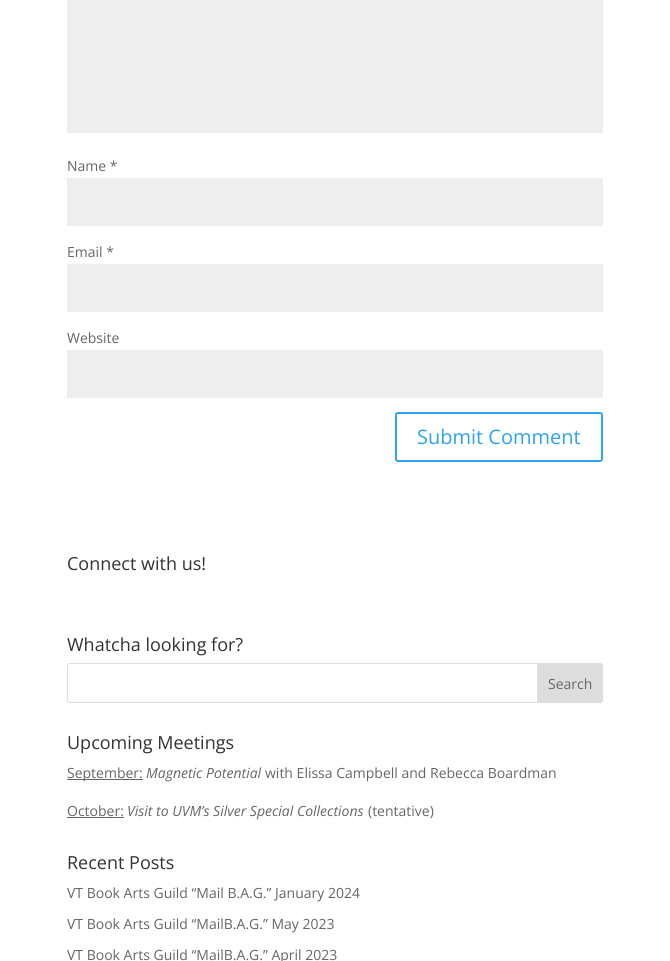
#include <cairo.h>
#include <math.h>
#include <stddef.h>

typedef struct { double x, y; const char *s; } line_t;

static void ink(cairo_t *ctx, unsigned color) {
    cairo_set_source_rgb(ctx, (color >> 16) / 255.0, (color >> 8 & 255) / 255.0, (color & 255) / 255.0);
}

static void round_path(cairo_t *ctx, double x, double y, double w, double h, double r) {
    cairo_new_sub_path(ctx);
    cairo_arc(ctx, x + w - r, y + h - r, r, 0, M_PI / 2);
    cairo_arc(ctx, x + r, y + h - r, r, M_PI / 2, M_PI);
    cairo_arc(ctx, x + r, y + r, r, M_PI, 1.5 * M_PI);
    cairo_arc(ctx, x + w - r, y + r, r, 1.5 * M_PI, 2 * M_PI);
    cairo_close_path(ctx);
}

int main(void) {
    cairo_surface_t *surface = cairo_image_surface_create(CAIRO_FORMAT_RGB24, 670, 961);
    cairo_t *ctx = cairo_create(surface);
    cairo_font_options_t *options = cairo_font_options_create();
    cairo_font_options_set_hint_metrics(options, CAIRO_HINT_METRICS_OFF);
    cairo_font_options_set_hint_style(options, CAIRO_HINT_STYLE_NONE);
    cairo_set_font_options(ctx, options);
    cairo_set_miter_limit(ctx, 4);
    ink(ctx, 0xFFFFFF);
    cairo_paint(ctx);
    ink(ctx, 0xEEEEEE);
    cairo_rectangle(ctx, 67, 0, 536, 133);
    cairo_fill(ctx);
    cairo_select_font_face(ctx, "Open Sans", CAIRO_FONT_SLANT_NORMAL, CAIRO_FONT_WEIGHT_NORMAL);
    cairo_set_font_size(ctx, 14);
    ink(ctx, 0x666666);
    cairo_move_to(ctx, 67, 171);
    cairo_show_text(ctx, "Name *");
    ink(ctx, 0xEEEEEE);
    cairo_rectangle(ctx, 67, 178, 536, 48);
    cairo_fill(ctx);
    ink(ctx, 0x666666);
    cairo_move_to(ctx, 67, 257);
    cairo_show_text(ctx, "Email *");
    ink(ctx, 0xEEEEEE);
    cairo_rectangle(ctx, 67, 264, 536, 48);
    cairo_fill(ctx);
    ink(ctx, 0x666666);
    cairo_move_to(ctx, 67, 343);
    cairo_show_text(ctx, "Website");
    ink(ctx, 0xEEEEEE);
    cairo_rectangle(ctx, 67, 350, 536, 48);
    cairo_fill(ctx);
    round_path(ctx, 396, 413, 206, 48, 2);
    ink(ctx, 0x2EA3F2);
    cairo_stroke(ctx);
    cairo_set_font_size(ctx, 20);
    cairo_move_to(ctx, 417, 444);
    cairo_show_text(ctx, "Submit Comment");
    cairo_set_font_size(ctx, 18);
    ink(ctx, 0x333333);
    cairo_move_to(ctx, 67, 570);
    cairo_show_text(ctx, "Connect with us!");
    cairo_move_to(ctx, 67, 651);
    cairo_show_text(ctx, "Whatcha looking for?");
    round_path(ctx, 67.5, 663.5, 535, 39, 2.5);
    ink(ctx, 0xDDDDDD);
    cairo_set_line_width(ctx, 1);
    cairo_stroke(ctx);
    cairo_new_path(ctx);
    cairo_move_to(ctx, 537.5, 663.5);
    cairo_line_to(ctx, 600, 663.5);
    cairo_curve_to(ctx, 601.5, 663.5, 602.5, 664.5, 602.5, 666);
    cairo_line_to(ctx, 602.5, 700);
    cairo_curve_to(ctx, 602.5, 701.5, 601.5, 702.5, 600, 702.5);
    cairo_line_to(ctx, 537.5, 702.5);
    cairo_close_path(ctx);
    cairo_fill_preserve(ctx);
    cairo_stroke(ctx);
    cairo_set_font_size(ctx, 14);
    ink(ctx, 0x666666);
    cairo_move_to(ctx, 548, 689);
    cairo_show_text(ctx, "Search");
    cairo_set_font_size(ctx, 18);
    ink(ctx, 0x333333);
    cairo_move_to(ctx, 67, 749);
    cairo_show_text(ctx, "Upcoming Meetings");
    ink(ctx, 0x666666);
    cairo_rectangle(ctx, 67, 779, 76, 1);
    cairo_fill(ctx);
    cairo_set_font_size(ctx, 14);
    cairo_move_to(ctx, 67, 778);
    cairo_show_text(ctx, "September:");
    cairo_select_font_face(ctx, "Open Sans", CAIRO_FONT_SLANT_ITALIC, CAIRO_FONT_WEIGHT_NORMAL);
    cairo_move_to(ctx, 146, 778);
    cairo_show_text(ctx, "Magnetic Potential");
    cairo_select_font_face(ctx, "Open Sans", CAIRO_FONT_SLANT_NORMAL, CAIRO_FONT_WEIGHT_NORMAL);
    cairo_move_to(ctx, 265, 778);
    cairo_show_text(ctx, "with Elissa Campbell and Rebecca Boardman");
    cairo_move_to(ctx, 67, 816);
    cairo_show_text(ctx, "October:");
    cairo_rectangle(ctx, 67, 817, 57, 1);
    cairo_fill(ctx);
    cairo_select_font_face(ctx, "Open Sans", CAIRO_FONT_SLANT_ITALIC, CAIRO_FONT_WEIGHT_NORMAL);
    cairo_move_to(ctx, 127, 816);
    cairo_show_text(ctx, "Visit to UVM’s Silver Special Collections");
    cairo_select_font_face(ctx, "Open Sans", CAIRO_FONT_SLANT_NORMAL, CAIRO_FONT_WEIGHT_NORMAL);
    cairo_move_to(ctx, 368, 816);
    cairo_show_text(ctx, "(tentative)");
    cairo_set_font_size(ctx, 18);
    ink(ctx, 0x333333);
    cairo_move_to(ctx, 67, 869);
    cairo_show_text(ctx, "Recent Posts");
    cairo_set_font_size(ctx, 14);
    ink(ctx, 0x666666);
    {
        static const line_t items[] = {
            {67, 898, "VT Book Arts Guild “Mail B.A.G.” January 2024"},
            {67, 929, "VT Book Arts Guild “MailB.A.G.” May 2023"},
            {67, 960, "VT Book Arts Guild “MailB.A.G.” April 2023"},
        };
        for (size_t i = 0; i < sizeof items / sizeof *items; i++) {
            cairo_move_to(ctx, items[i].x, items[i].y);
            cairo_show_text(ctx, items[i].s);
        }
    }
    cairo_surface_write_to_png(surface, "image.png");
    cairo_font_options_destroy(options);
    cairo_destroy(ctx);
    cairo_surface_destroy(surface);
    return 0;
}
